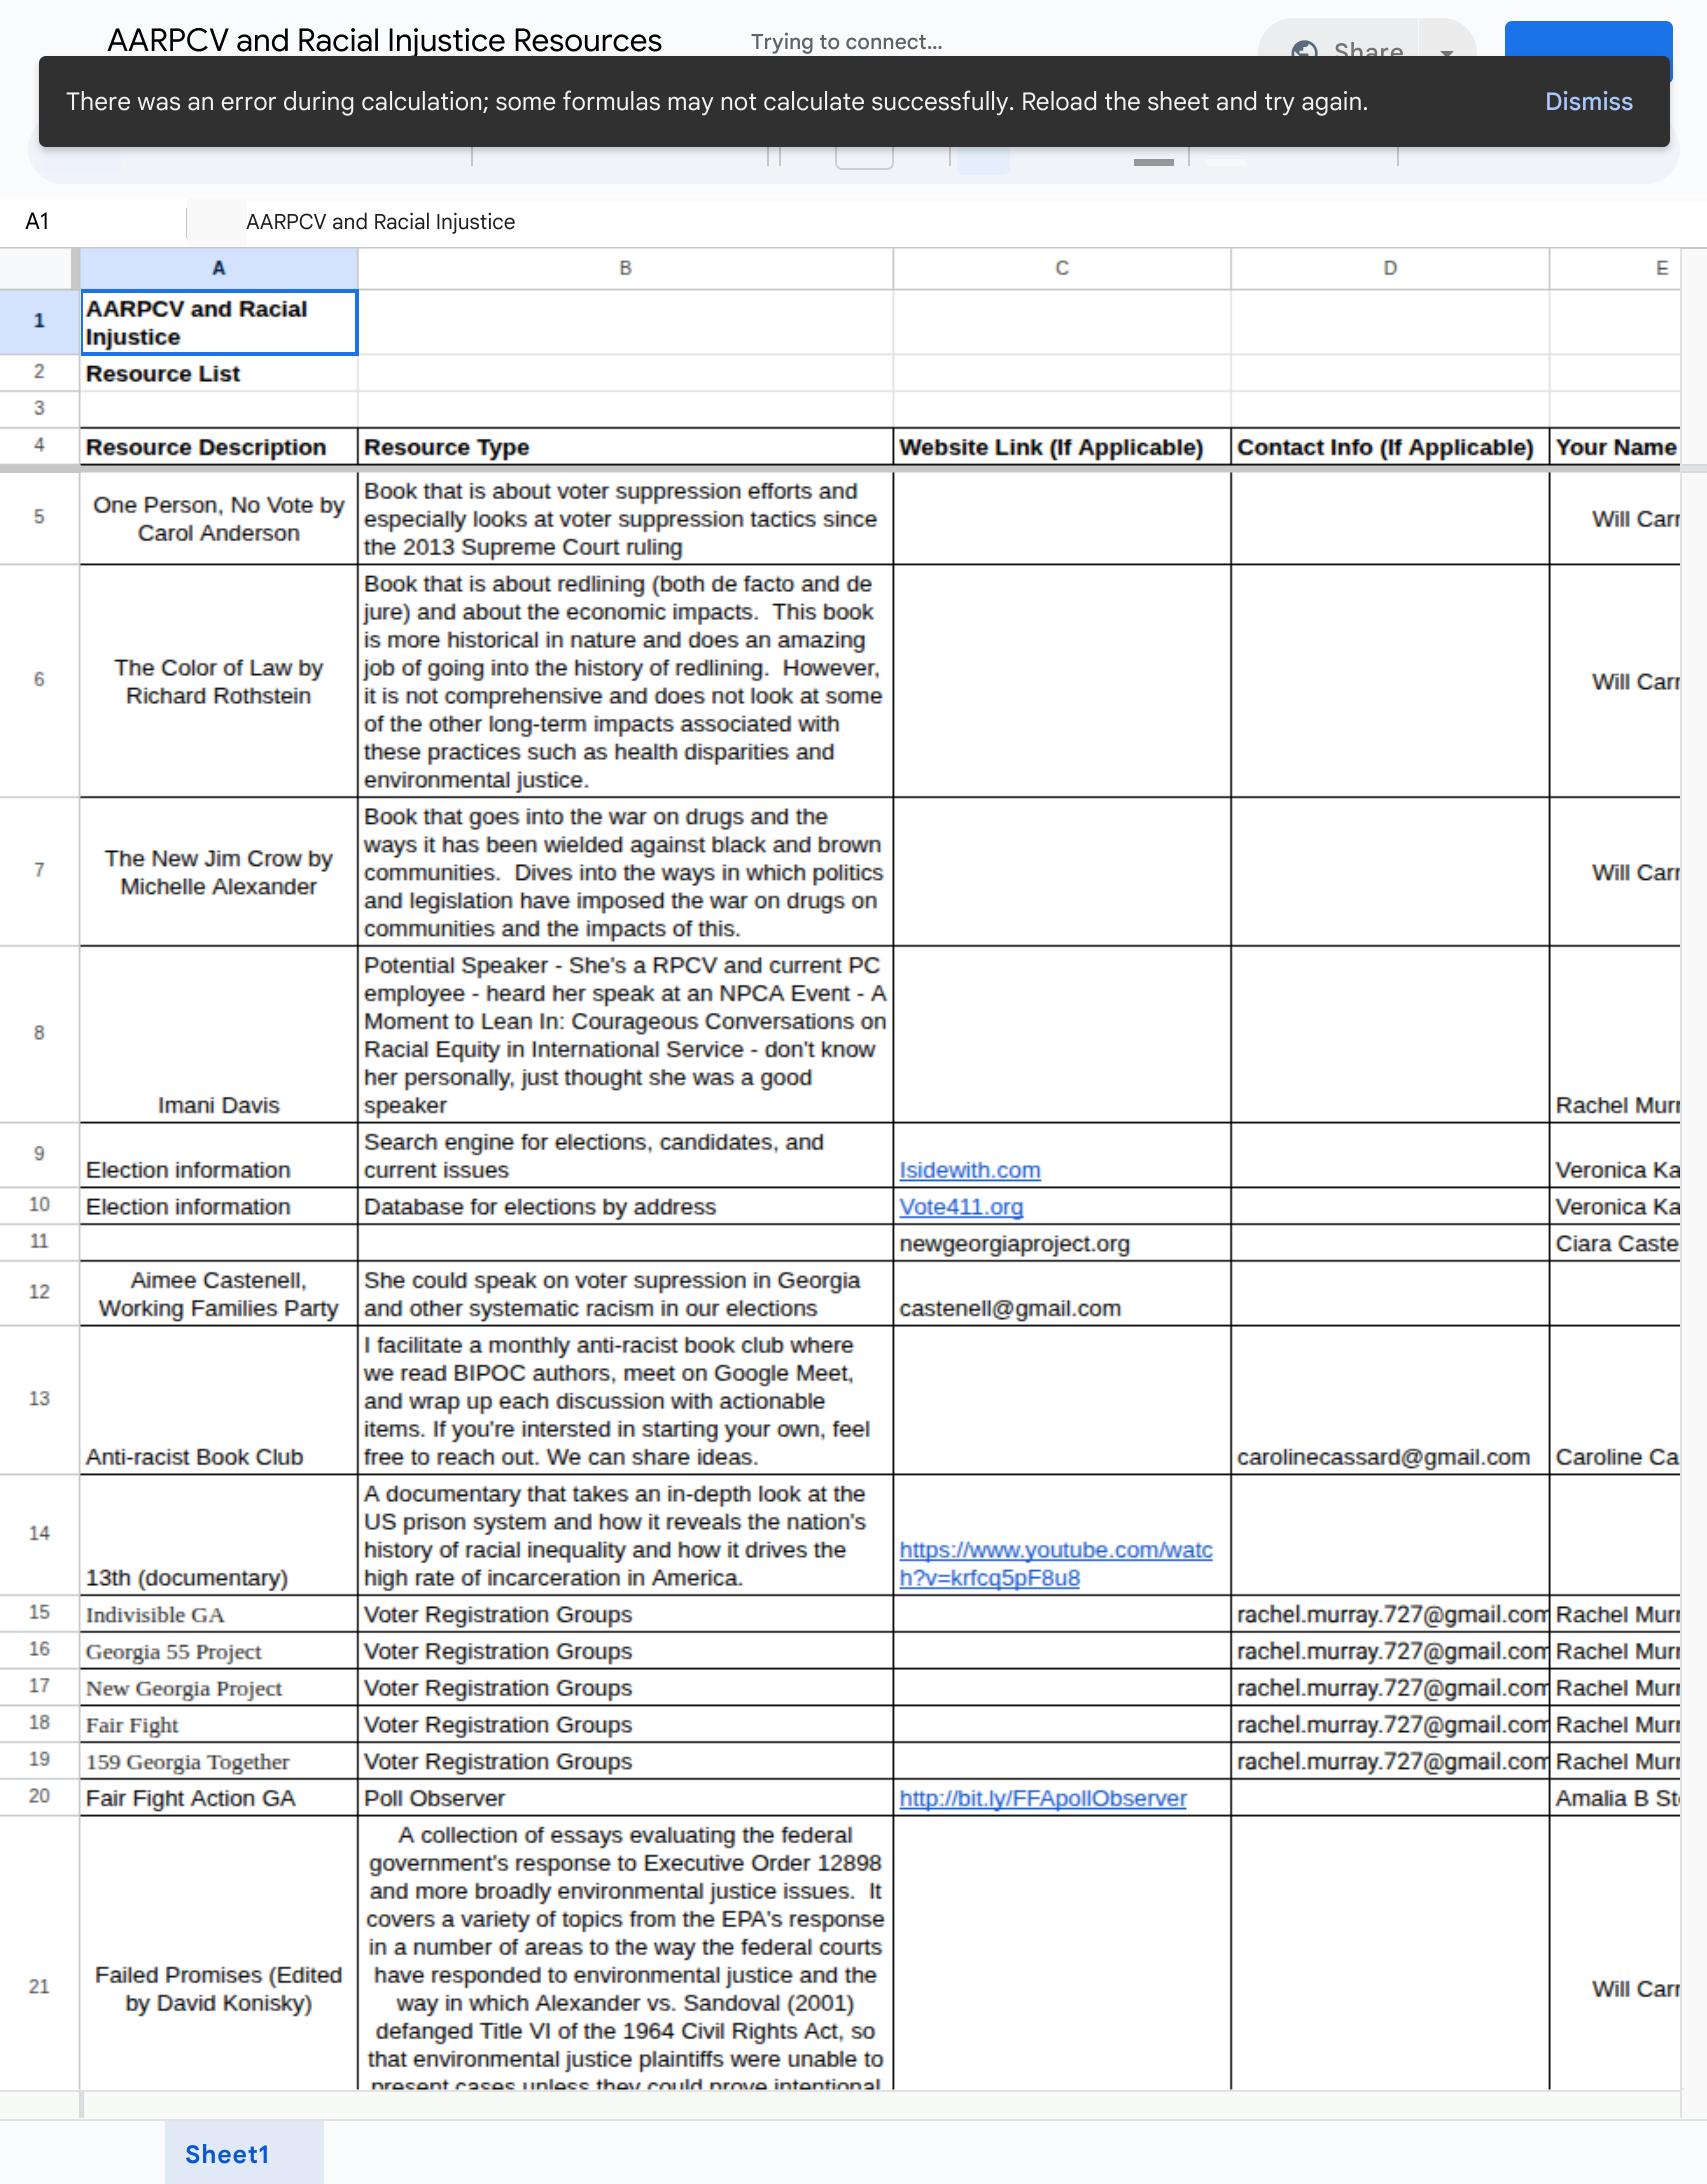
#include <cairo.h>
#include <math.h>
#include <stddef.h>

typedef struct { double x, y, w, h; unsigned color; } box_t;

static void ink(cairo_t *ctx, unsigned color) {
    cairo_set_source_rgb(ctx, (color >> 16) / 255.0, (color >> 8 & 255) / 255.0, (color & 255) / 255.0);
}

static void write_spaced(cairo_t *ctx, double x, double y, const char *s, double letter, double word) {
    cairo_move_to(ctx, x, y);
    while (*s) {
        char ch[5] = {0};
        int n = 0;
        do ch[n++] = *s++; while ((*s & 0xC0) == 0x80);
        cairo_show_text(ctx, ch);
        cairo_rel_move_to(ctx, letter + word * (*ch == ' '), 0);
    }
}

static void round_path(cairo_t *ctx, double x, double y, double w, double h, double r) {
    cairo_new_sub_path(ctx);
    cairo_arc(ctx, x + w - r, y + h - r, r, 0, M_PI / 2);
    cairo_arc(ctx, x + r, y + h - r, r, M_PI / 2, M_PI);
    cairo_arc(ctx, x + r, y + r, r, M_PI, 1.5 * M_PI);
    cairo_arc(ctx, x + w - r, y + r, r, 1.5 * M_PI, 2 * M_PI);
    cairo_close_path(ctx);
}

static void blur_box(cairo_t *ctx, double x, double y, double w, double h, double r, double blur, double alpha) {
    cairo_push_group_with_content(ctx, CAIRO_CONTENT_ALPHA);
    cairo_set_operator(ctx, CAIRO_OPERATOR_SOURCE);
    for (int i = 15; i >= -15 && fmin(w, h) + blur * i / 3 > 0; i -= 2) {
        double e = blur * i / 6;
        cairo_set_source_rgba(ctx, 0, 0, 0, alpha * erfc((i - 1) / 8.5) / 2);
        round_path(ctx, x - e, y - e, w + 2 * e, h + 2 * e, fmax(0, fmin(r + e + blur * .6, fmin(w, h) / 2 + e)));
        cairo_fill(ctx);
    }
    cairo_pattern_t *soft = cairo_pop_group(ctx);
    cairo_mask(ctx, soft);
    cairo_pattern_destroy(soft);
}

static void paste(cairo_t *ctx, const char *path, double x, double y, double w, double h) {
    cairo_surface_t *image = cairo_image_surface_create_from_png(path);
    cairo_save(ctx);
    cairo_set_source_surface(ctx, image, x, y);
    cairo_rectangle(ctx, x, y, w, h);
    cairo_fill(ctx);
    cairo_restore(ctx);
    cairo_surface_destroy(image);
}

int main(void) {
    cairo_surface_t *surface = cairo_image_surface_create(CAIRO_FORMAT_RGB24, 1707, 2184);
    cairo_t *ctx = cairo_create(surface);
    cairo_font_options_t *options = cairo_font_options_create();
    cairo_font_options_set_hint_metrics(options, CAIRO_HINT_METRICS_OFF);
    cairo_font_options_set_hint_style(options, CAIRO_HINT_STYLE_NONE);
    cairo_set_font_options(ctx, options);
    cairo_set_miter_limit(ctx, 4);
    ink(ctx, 0xF9FBFD);
    cairo_paint(ctx);
    cairo_select_font_face(ctx, "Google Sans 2", CAIRO_FONT_SLANT_NORMAL, CAIRO_FONT_WEIGHT_NORMAL);
    cairo_set_font_size(ctx, 31.5);
    ink(ctx, 0x000000);
    cairo_move_to(ctx, 107, 51);
    cairo_show_text(ctx, "AARPCV and Racial Injustice Resources");
    cairo_select_font_face(ctx, "Google Sans Medium", CAIRO_FONT_SLANT_NORMAL, CAIRO_FONT_WEIGHT_NORMAL);
    cairo_set_font_size(ctx, 21);
    ink(ctx, 0x5F6368);
    cairo_move_to(ctx, 751, 49);
    cairo_show_text(ctx, "Trying to connect…");
    ink(ctx, 0xECEDEE);
    cairo_new_path(ctx);
    cairo_move_to(ctx, 1293, 18);
    cairo_line_to(ctx, 1419, 18);
    cairo_line_to(ctx, 1419, 88);
    cairo_line_to(ctx, 1293, 88);
    cairo_curve_to(ctx, 1273.5, 88, 1258, 72.5, 1258, 53);
    cairo_curve_to(ctx, 1258, 33.5, 1273.5, 18, 1293, 18);
    cairo_close_path(ctx);
    cairo_fill(ctx);
    paste(ctx, "media/1.png", 1291, 40, 27, 16);
    cairo_set_font_size(ctx, 24.5);
    ink(ctx, 0x727373);
    write_spaced(ctx, 1334, 61, "Share", 0.5, 0);
    cairo_set_source_rgba(ctx, 0.894, 0.894, 0.894, 0.62);
    cairo_new_path(ctx);
    cairo_move_to(ctx, 1418, 18);
    cairo_line_to(ctx, 1442, 18);
    cairo_curve_to(ctx, 1461.5, 18, 1477, 33.5, 1477, 53);
    cairo_curve_to(ctx, 1477, 72.5, 1461.5, 88, 1442, 88);
    cairo_line_to(ctx, 1418, 88);
    cairo_close_path(ctx);
    cairo_fill(ctx);
    ink(ctx, 0xF8F8F9);
    cairo_new_path(ctx);
    cairo_move_to(ctx, 1419, 19);
    cairo_line_to(ctx, 1418, 18);
    cairo_line_to(ctx, 1418, 87);
    cairo_line_to(ctx, 1419, 86);
    cairo_close_path(ctx);
    cairo_fill(ctx);
    ink(ctx, 0x727373);
    cairo_new_path(ctx);
    cairo_move_to(ctx, 1440, 51);
    cairo_line_to(ctx, 1454, 51);
    cairo_line_to(ctx, 1447, 58);
    cairo_close_path(ctx);
    cairo_fill(ctx);
    ink(ctx, 0x1A73E8);
    round_path(ctx, 1505, 21, 168, 63, 7);
    cairo_fill(ctx);
    ink(ctx, 0xF0F4F9);
    round_path(ctx, 28, 114, 1652, 70, 35);
    cairo_fill(ctx);
    ink(ctx, 0xEDF2FA);
    round_path(ctx, 44, 124, 77, 49, 7);
    cairo_fill(ctx);
    {
        static const box_t items[] = {
            {471, 147, 2, 19, 0xC7C7C7},
            {767, 147, 2, 19, 0xC7C7C7},
            {779, 147, 2, 19, 0xC7C7C7},
        };
        for (size_t i = 0; i < sizeof items / sizeof *items; i++) {
            ink(ctx, items[i].color);
            cairo_rectangle(ctx, items[i].x, items[i].y, items[i].w, items[i].h);
            cairo_fill(ctx);
        }
    }
    round_path(ctx, 836, 129, 57, 40, 6);
    ink(ctx, 0xCBCFD1);
    cairo_stroke(ctx);
    ink(ctx, 0xC7C7C7);
    cairo_rectangle(ctx, 949, 147, 2, 19);
    cairo_fill(ctx);
    ink(ctx, 0xE5EEFB);
    round_path(ctx, 957, 123, 53, 52, 7);
    cairo_fill(ctx);
    {
        static const box_t items[] = {
            {1134, 159, 40, 7, 0x95979A},
            {1188, 147, 2, 19, 0xC7C7C7},
            {1206, 159, 40, 7, 0xF6F8FB},
            {1397, 147, 2, 19, 0xC7C7C7},
        };
        for (size_t i = 0; i < sizeof items / sizeof *items; i++) {
            ink(ctx, items[i].color);
            cairo_rectangle(ctx, items[i].x, items[i].y, items[i].w, items[i].h);
            cairo_fill(ctx);
        }
    }
    ink(ctx, 0x000000);
    blur_box(ctx, 39, 60, 1631, 91, 7, 3.5, 0.2);
    ink(ctx, 0x303030);
    round_path(ctx, 39, 56, 1631, 91, 7);
    cairo_fill(ctx);
    cairo_select_font_face(ctx, "Google Sans", CAIRO_FONT_SLANT_NORMAL, CAIRO_FONT_WEIGHT_NORMAL);
    ink(ctx, 0xF2F2F2);
    cairo_move_to(ctx, 66, 110);
    cairo_show_text(ctx, "There was an error during calculation; some formulas may not calculate successfully. Reload the sheet and try again.");
    cairo_select_font_face(ctx, "Google Sans Medium", CAIRO_FONT_SLANT_NORMAL, CAIRO_FONT_WEIGHT_NORMAL);
    ink(ctx, 0xA8C7FA);
    cairo_move_to(ctx, 1545, 110);
    cairo_show_text(ctx, "Dismiss");
    ink(ctx, 0xFFFFFF);
    cairo_rectangle(ctx, 0, 198, 187, 49);
    cairo_fill(ctx);
    cairo_select_font_face(ctx, "Google Sans", CAIRO_FONT_SLANT_NORMAL, CAIRO_FONT_WEIGHT_NORMAL);
    cairo_set_font_size(ctx, 23);
    ink(ctx, 0x000000);
    cairo_move_to(ctx, 25, 229);
    cairo_show_text(ctx, "A1");
    {
        static const box_t items[] = {
            {186, 208, 1, 30, 0xC7C7C7},
            {187, 198, 1520, 49, 0xF9F9F9},
            {247, 201, 1460, 46, 0xFFFFFF},
        };
        for (size_t i = 0; i < sizeof items / sizeof *items; i++) {
            ink(ctx, items[i].color);
            cairo_rectangle(ctx, items[i].x, items[i].y, items[i].w, items[i].h);
            cairo_fill(ctx);
        }
    }
    cairo_set_font_size(ctx, 21);
    ink(ctx, 0x1F1F1F);
    cairo_move_to(ctx, 246, 229);
    cairo_show_text(ctx, "AARPCV and Racial Injustice");
    {
        static const box_t items[] = {
            {0, 247, 1707, 2, 0xC7C7C7},
            {0, 2089, 1680, 29, 0xF8FAF8},
            {81, 2089, 2, 1, 0xE1E3E1},
            {0, 2089, 81, 1, 0xFFFFFF},
        };
        for (size_t i = 0; i < sizeof items / sizeof *items; i++) {
            ink(ctx, items[i].color);
            cairo_rectangle(ctx, items[i].x, items[i].y, items[i].w, items[i].h);
            cairo_fill(ctx);
        }
    }
    paste(ctx, "media/2.png", 0, 248, 1680, 1842);
    {
        static const box_t items[] = {
            {81, 289, 278, 4, 0x1A73E8},
            {81, 352, 278, 4, 0x1A73E8},
            {81, 289, 2, 66, 0x1A73E8},
            {355, 289, 4, 66, 0x1A73E8},
            {71, 248, 8, 43, 0xC7C7C7},
            {0, 465, 81, 8, 0xC7C7C7},
            {1682, 249, 25, 1869, 0xF9F9F9},
            {1682, 2088, 2, 2, 0xE1E3E1},
            {1680, 249, 2, 1869, 0xE1E3E1},
            {1682, 466, 25, 5, 0xDDE3EA},
            {1682, 464, 25, 2, 0xDADADA},
            {1682, 471, 25, 2, 0xDADADA},
            {0, 2090, 1680, 2, 0xE1E3E1},
            {81, 2091, 1, 27, 0xDDE3EA},
            {82, 2091, 2, 27, 0xDADADA},
            {79, 2091, 2, 27, 0xDADADA},
            {0, 2119, 1707, 2, 0xE1E3E1},
            {165, 2121, 159, 63, 0xE1E9F7},
        };
        for (size_t i = 0; i < sizeof items / sizeof *items; i++) {
            ink(ctx, items[i].color);
            cairo_rectangle(ctx, items[i].x, items[i].y, items[i].w, items[i].h);
            cairo_fill(ctx);
        }
    }
    cairo_select_font_face(ctx, "Google Sans", CAIRO_FONT_SLANT_NORMAL, CAIRO_FONT_WEIGHT_BOLD);
    cairo_set_font_size(ctx, 24.5);
    ink(ctx, 0x0B57D0);
    write_spaced(ctx, 185, 2163, "Sheet1", 0.75, 0);
    cairo_surface_write_to_png(surface, "image.png");
    cairo_font_options_destroy(options);
    cairo_destroy(ctx);
    cairo_surface_destroy(surface);
    return 0;
}
